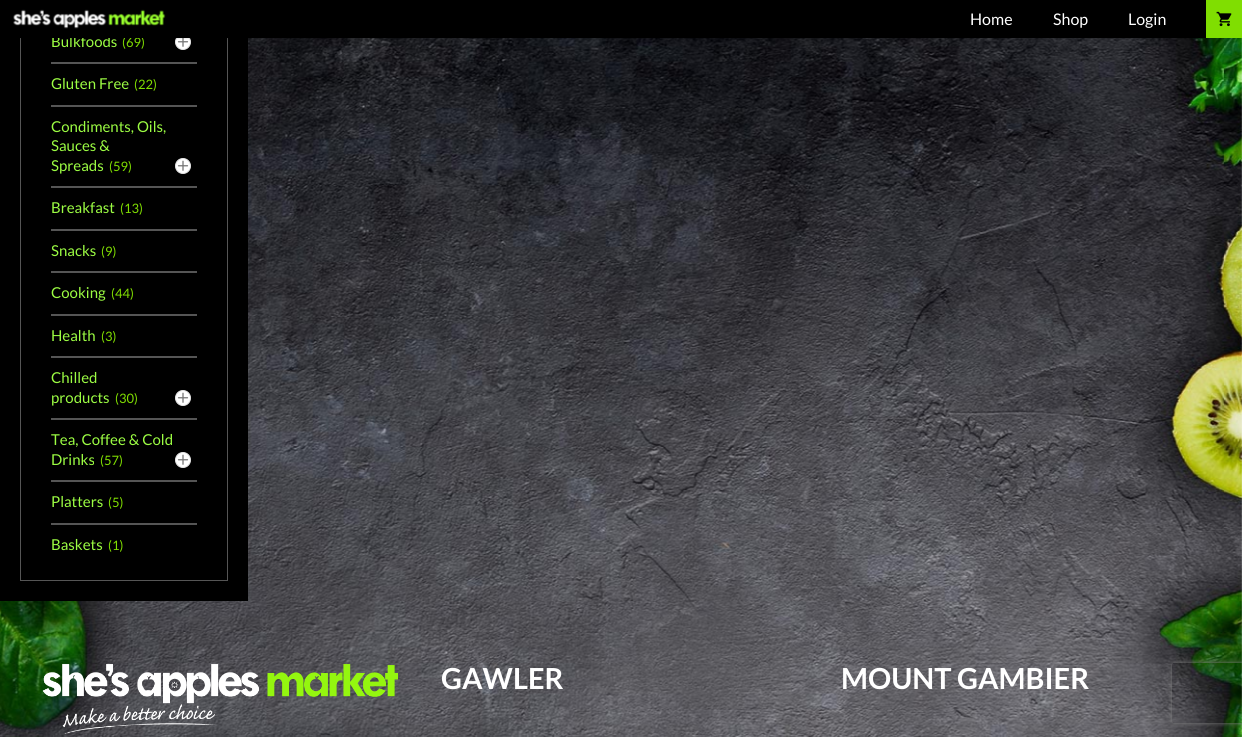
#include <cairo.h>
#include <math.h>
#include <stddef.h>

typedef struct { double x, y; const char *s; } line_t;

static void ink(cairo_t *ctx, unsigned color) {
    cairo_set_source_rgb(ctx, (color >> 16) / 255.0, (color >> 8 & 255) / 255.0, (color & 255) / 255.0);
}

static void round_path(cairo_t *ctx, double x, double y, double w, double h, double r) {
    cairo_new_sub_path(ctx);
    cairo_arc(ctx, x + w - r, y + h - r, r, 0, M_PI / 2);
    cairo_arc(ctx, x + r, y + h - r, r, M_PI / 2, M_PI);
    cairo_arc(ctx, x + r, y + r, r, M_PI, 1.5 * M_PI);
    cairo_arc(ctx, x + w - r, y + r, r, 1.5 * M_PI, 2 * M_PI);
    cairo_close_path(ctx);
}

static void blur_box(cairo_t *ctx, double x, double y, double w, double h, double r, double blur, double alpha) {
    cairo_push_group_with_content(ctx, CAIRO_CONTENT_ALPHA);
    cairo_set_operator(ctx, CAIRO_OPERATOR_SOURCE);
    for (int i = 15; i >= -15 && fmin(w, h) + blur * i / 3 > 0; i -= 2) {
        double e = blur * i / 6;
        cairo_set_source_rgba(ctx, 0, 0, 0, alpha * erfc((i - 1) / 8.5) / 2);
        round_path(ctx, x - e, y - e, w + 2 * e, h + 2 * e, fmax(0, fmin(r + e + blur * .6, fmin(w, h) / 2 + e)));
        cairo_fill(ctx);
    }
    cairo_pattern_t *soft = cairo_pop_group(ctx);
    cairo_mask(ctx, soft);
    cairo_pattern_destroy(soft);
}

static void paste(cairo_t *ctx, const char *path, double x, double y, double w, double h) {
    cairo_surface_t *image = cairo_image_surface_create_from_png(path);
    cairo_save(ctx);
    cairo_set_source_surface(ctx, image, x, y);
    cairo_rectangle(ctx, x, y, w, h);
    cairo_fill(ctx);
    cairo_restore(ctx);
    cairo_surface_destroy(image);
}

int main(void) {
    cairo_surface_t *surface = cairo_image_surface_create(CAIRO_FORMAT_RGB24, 1242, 737);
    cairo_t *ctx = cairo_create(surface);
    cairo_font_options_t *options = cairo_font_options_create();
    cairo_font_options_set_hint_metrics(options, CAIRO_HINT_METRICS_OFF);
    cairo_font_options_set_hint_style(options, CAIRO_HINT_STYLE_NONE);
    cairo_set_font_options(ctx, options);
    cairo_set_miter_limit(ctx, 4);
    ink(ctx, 0xFFFFFF);
    cairo_paint(ctx);
    paste(ctx, "media/1.png", 0, 38, 1242, 699);
    ink(ctx, 0x000000);
    cairo_rectangle(ctx, 0, 38, 248, 563);
    cairo_fill(ctx);
    cairo_rectangle(ctx, 20.5, -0.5, 207, 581);
    ink(ctx, 0x555555);
    cairo_set_line_width(ctx, 1);
    cairo_stroke(ctx);
    ink(ctx, 0xFFFFFF);
    cairo_arc(ctx, 183, 42, 7.5, 0, 2 * M_PI);
    cairo_fill_preserve(ctx);
    ink(ctx, 0xE4E4E4);
    cairo_stroke(ctx);
    paste(ctx, "media/4.png", 177, 38, 12, 9);
    ink(ctx, 0x000000);
    blur_box(ctx, 2, 4, 1238, 34, 0, 1, 0.2);
    cairo_select_font_face(ctx, "Lato", CAIRO_FONT_SLANT_NORMAL, CAIRO_FONT_WEIGHT_NORMAL);
    cairo_set_font_size(ctx, 15);
    ink(ctx, 0x9CFD43);
    cairo_move_to(ctx, 51, 47);
    cairo_show_text(ctx, "Bulkfoods");
    cairo_set_font_size(ctx, 13);
    ink(ctx, 0x80DE01);
    cairo_move_to(ctx, 122, 47);
    cairo_show_text(ctx, "(69)");
    ink(ctx, 0x000000);
    cairo_rectangle(ctx, 0, 0, 1206, 38);
    cairo_fill(ctx);
    paste(ctx, "media/2.png", 13, 9, 153, 20);
    cairo_set_font_size(ctx, 16);
    ink(ctx, 0xFFFFFF);
    {
        static const line_t items[] = {
            {970, 25, "Home"},
            {1053, 25, "Shop"},
            {1128, 25, "Login"},
        };
        for (size_t i = 0; i < sizeof items / sizeof *items; i++) {
            cairo_move_to(ctx, items[i].x, items[i].y);
            cairo_show_text(ctx, items[i].s);
        }
    }
    ink(ctx, 0x80DE01);
    cairo_rectangle(ctx, 1206, 0, 36, 38);
    cairo_fill(ctx);
    paste(ctx, "media/3.png", 1216, 11, 16, 16);
    ink(ctx, 0x555555);
    cairo_rectangle(ctx, 51, 62, 146, 2);
    cairo_fill(ctx);
    cairo_set_font_size(ctx, 15);
    ink(ctx, 0x9CFD43);
    cairo_move_to(ctx, 51, 89);
    cairo_show_text(ctx, "Gluten Free");
    cairo_set_font_size(ctx, 13);
    ink(ctx, 0x80DE01);
    cairo_move_to(ctx, 134, 89);
    cairo_show_text(ctx, "(22)");
    ink(ctx, 0x555555);
    cairo_rectangle(ctx, 51, 105, 146, 2);
    cairo_fill(ctx);
    cairo_set_font_size(ctx, 15);
    ink(ctx, 0x9CFD43);
    {
        static const line_t items[] = {
            {51, 132, "Condiments, Oils,"},
            {51, 151, "Sauces &"},
            {51, 171, "Spreads"},
        };
        for (size_t i = 0; i < sizeof items / sizeof *items; i++) {
            cairo_move_to(ctx, items[i].x, items[i].y);
            cairo_show_text(ctx, items[i].s);
        }
    }
    cairo_set_font_size(ctx, 13);
    ink(ctx, 0x80DE01);
    cairo_move_to(ctx, 109, 171);
    cairo_show_text(ctx, "(59)");
    ink(ctx, 0xFFFFFF);
    cairo_new_path(ctx);
    cairo_arc(ctx, 183, 166, 7.5, 0, 2 * M_PI);
    cairo_fill_preserve(ctx);
    ink(ctx, 0xE4E4E4);
    cairo_stroke(ctx);
    paste(ctx, "media/5.png", 177, 160, 12, 11);
    ink(ctx, 0x555555);
    cairo_rectangle(ctx, 51, 186, 146, 2);
    cairo_fill(ctx);
    cairo_set_font_size(ctx, 15);
    ink(ctx, 0x9CFD43);
    cairo_move_to(ctx, 51, 213);
    cairo_show_text(ctx, "Breakfast");
    cairo_set_font_size(ctx, 13);
    ink(ctx, 0x80DE01);
    cairo_move_to(ctx, 120, 213);
    cairo_show_text(ctx, "(13)");
    ink(ctx, 0x555555);
    cairo_rectangle(ctx, 51, 229, 146, 2);
    cairo_fill(ctx);
    cairo_set_font_size(ctx, 15);
    ink(ctx, 0x9CFD43);
    cairo_move_to(ctx, 51, 256);
    cairo_show_text(ctx, "Snacks");
    cairo_set_font_size(ctx, 13);
    ink(ctx, 0x80DE01);
    cairo_move_to(ctx, 101, 256);
    cairo_show_text(ctx, "(9)");
    ink(ctx, 0x555555);
    cairo_rectangle(ctx, 51, 271, 146, 2);
    cairo_fill(ctx);
    cairo_set_font_size(ctx, 15);
    ink(ctx, 0x9CFD43);
    cairo_move_to(ctx, 51, 298);
    cairo_show_text(ctx, "Cooking");
    cairo_set_font_size(ctx, 13);
    ink(ctx, 0x80DE01);
    cairo_move_to(ctx, 111, 298);
    cairo_show_text(ctx, "(44)");
    ink(ctx, 0x555555);
    cairo_rectangle(ctx, 51, 314, 146, 2);
    cairo_fill(ctx);
    cairo_set_font_size(ctx, 15);
    ink(ctx, 0x9CFD43);
    cairo_move_to(ctx, 51, 341);
    cairo_show_text(ctx, "Health");
    cairo_set_font_size(ctx, 13);
    ink(ctx, 0x80DE01);
    cairo_move_to(ctx, 101, 341);
    cairo_show_text(ctx, "(3)");
    ink(ctx, 0x555555);
    cairo_rectangle(ctx, 51, 356, 146, 2);
    cairo_fill(ctx);
    cairo_set_font_size(ctx, 15);
    ink(ctx, 0x9CFD43);
    cairo_move_to(ctx, 51, 383);
    cairo_show_text(ctx, "Chilled");
    cairo_move_to(ctx, 51, 403);
    cairo_show_text(ctx, "products");
    cairo_set_font_size(ctx, 13);
    ink(ctx, 0x80DE01);
    cairo_move_to(ctx, 115, 403);
    cairo_show_text(ctx, "(30)");
    ink(ctx, 0xFFFFFF);
    cairo_new_path(ctx);
    cairo_arc(ctx, 183, 398, 7.5, 0, 2 * M_PI);
    cairo_fill_preserve(ctx);
    ink(ctx, 0xE4E4E4);
    cairo_stroke(ctx);
    paste(ctx, "media/5.png", 177, 392, 12, 11);
    ink(ctx, 0x555555);
    cairo_rectangle(ctx, 51, 418, 146, 2);
    cairo_fill(ctx);
    cairo_set_font_size(ctx, 15);
    ink(ctx, 0x9CFD43);
    cairo_move_to(ctx, 51, 445);
    cairo_show_text(ctx, "Tea, Coffee & Cold");
    cairo_move_to(ctx, 51, 465);
    cairo_show_text(ctx, "Drinks");
    cairo_set_font_size(ctx, 13);
    ink(ctx, 0x80DE01);
    cairo_move_to(ctx, 100, 465);
    cairo_show_text(ctx, "(57)");
    ink(ctx, 0xFFFFFF);
    cairo_new_path(ctx);
    cairo_arc(ctx, 183, 460, 7.5, 0, 2 * M_PI);
    cairo_fill_preserve(ctx);
    ink(ctx, 0xE4E4E4);
    cairo_stroke(ctx);
    paste(ctx, "media/5.png", 177, 454, 12, 11);
    ink(ctx, 0x555555);
    cairo_rectangle(ctx, 51, 480, 146, 2);
    cairo_fill(ctx);
    cairo_set_font_size(ctx, 15);
    ink(ctx, 0x9CFD43);
    cairo_move_to(ctx, 51, 507);
    cairo_show_text(ctx, "Platters");
    cairo_set_font_size(ctx, 13);
    ink(ctx, 0x80DE01);
    cairo_move_to(ctx, 108, 507);
    cairo_show_text(ctx, "(5)");
    ink(ctx, 0x555555);
    cairo_rectangle(ctx, 51, 523, 146, 2);
    cairo_fill(ctx);
    cairo_set_font_size(ctx, 15);
    ink(ctx, 0x9CFD43);
    cairo_move_to(ctx, 51, 550);
    cairo_show_text(ctx, "Baskets");
    cairo_set_font_size(ctx, 13);
    ink(ctx, 0x80DE01);
    cairo_move_to(ctx, 108, 550);
    cairo_show_text(ctx, "(1)");
    paste(ctx, "media/6.png", 42, 663, 356, 71);
    cairo_select_font_face(ctx, "Lato", CAIRO_FONT_SLANT_NORMAL, CAIRO_FONT_WEIGHT_BOLD);
    cairo_set_font_size(ctx, 29);
    ink(ctx, 0xFFFFFF);
    cairo_move_to(ctx, 441, 689);
    cairo_show_text(ctx, "GAWLER");
    cairo_move_to(ctx, 841, 689);
    cairo_show_text(ctx, "MOUNT GAMBIER");
    cairo_save(ctx);
    cairo_set_fill_rule(ctx, CAIRO_FILL_RULE_EVEN_ODD);
    cairo_new_path(ctx);
    cairo_move_to(ctx, 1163, 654);
    cairo_line_to(ctx, 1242, 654);
    cairo_line_to(ctx, 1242, 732);
    cairo_line_to(ctx, 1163, 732);
    cairo_close_path(ctx);
    cairo_move_to(ctx, 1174, 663);
    cairo_line_to(ctx, 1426, 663);
    cairo_curve_to(ctx, 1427, 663, 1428, 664, 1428, 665);
    cairo_line_to(ctx, 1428, 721);
    cairo_curve_to(ctx, 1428, 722, 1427, 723, 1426, 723);
    cairo_line_to(ctx, 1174, 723);
    cairo_curve_to(ctx, 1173, 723, 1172, 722, 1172, 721);
    cairo_line_to(ctx, 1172, 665);
    cairo_curve_to(ctx, 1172, 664, 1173, 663, 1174, 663);
    cairo_close_path(ctx);
    cairo_clip(ctx);
    ink(ctx, 0x808080);
    blur_box(ctx, 1172, 663, 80, 60, 2, 2.5, 1);
    cairo_restore(ctx);
    cairo_surface_write_to_png(surface, "image.png");
    cairo_font_options_destroy(options);
    cairo_destroy(ctx);
    cairo_surface_destroy(surface);
    return 0;
}
